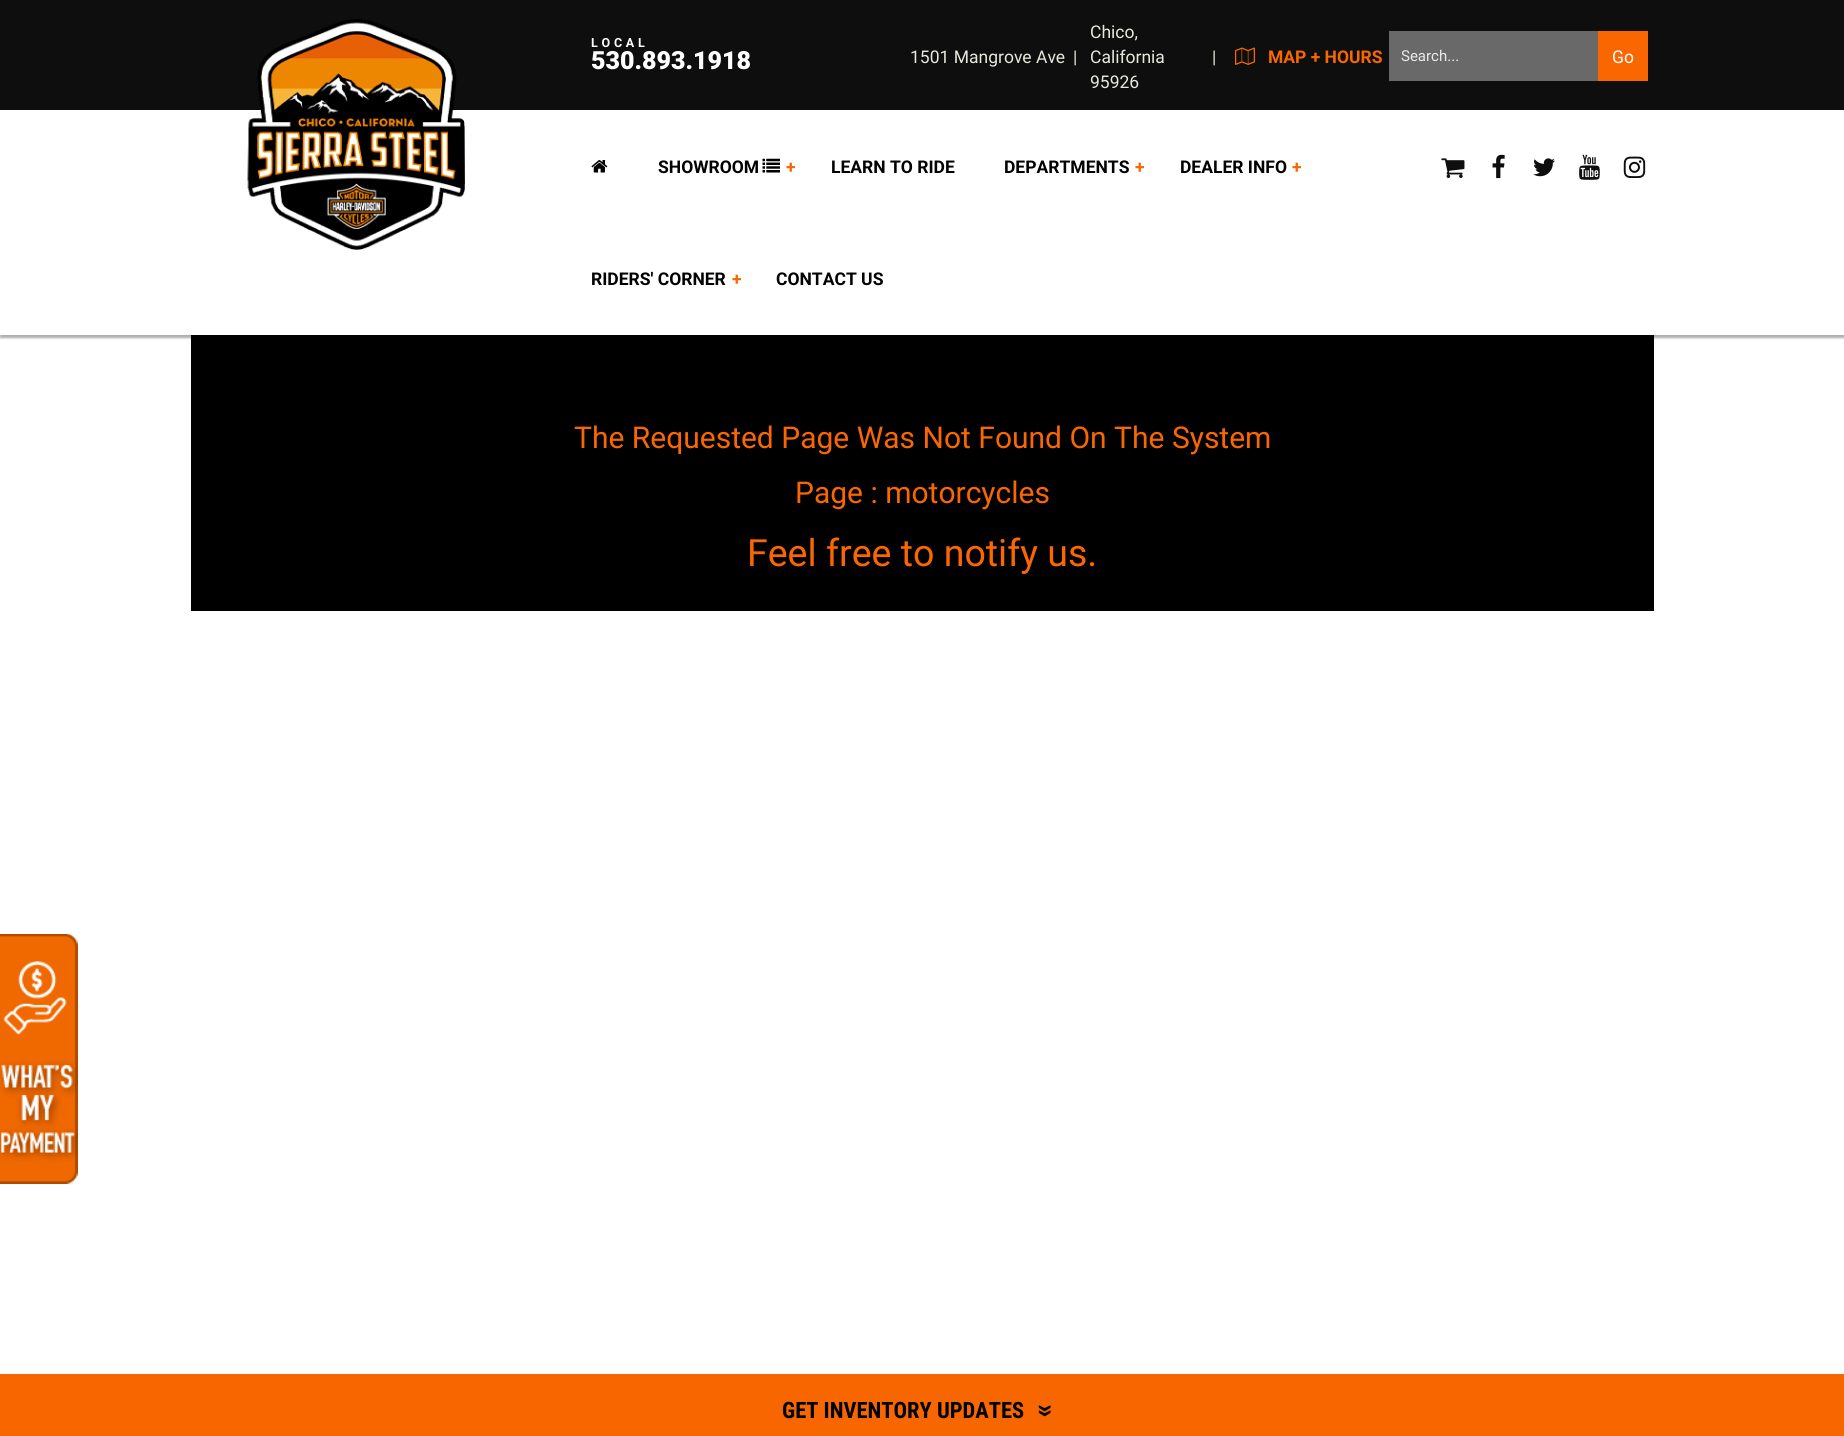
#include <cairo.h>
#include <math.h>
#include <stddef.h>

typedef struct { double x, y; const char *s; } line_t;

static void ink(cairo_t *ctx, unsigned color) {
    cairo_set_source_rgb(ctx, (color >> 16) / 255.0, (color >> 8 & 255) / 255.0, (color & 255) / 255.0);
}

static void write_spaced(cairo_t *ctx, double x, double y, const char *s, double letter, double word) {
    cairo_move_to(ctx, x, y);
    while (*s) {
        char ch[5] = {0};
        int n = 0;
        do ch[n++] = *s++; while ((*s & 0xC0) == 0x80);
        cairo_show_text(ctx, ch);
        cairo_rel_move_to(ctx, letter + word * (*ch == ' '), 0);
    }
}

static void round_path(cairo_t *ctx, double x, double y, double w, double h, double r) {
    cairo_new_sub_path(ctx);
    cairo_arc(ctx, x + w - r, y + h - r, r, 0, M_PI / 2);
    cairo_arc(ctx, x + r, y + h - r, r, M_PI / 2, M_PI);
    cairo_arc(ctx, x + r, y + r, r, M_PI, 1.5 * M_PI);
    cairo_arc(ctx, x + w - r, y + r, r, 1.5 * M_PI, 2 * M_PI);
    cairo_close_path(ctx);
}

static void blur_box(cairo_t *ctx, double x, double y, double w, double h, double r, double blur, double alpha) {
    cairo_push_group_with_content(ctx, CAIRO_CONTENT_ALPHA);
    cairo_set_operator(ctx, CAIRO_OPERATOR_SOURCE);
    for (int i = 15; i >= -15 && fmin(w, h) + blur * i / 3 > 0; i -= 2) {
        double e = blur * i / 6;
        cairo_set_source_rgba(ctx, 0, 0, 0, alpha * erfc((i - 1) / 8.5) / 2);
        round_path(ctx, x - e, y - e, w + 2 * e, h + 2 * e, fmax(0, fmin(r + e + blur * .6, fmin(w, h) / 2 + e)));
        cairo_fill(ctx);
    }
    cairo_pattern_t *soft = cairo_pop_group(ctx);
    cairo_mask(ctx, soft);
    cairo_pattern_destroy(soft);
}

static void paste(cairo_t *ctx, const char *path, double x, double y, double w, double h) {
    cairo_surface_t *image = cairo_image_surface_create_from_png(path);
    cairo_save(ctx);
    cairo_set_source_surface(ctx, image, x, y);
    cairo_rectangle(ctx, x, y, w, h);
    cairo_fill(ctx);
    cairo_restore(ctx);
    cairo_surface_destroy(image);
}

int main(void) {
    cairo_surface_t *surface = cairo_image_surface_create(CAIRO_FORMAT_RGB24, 1844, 1436);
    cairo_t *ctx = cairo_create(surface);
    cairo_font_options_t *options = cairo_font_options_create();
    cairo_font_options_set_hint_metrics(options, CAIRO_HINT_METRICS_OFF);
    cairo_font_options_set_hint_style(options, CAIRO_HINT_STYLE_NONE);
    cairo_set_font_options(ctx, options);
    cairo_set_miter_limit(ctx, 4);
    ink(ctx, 0xFFFFFF);
    cairo_paint(ctx);
    ink(ctx, 0x000000);
    cairo_rectangle(ctx, 191, 335, 1463, 276);
    cairo_fill(ctx);
    ink(ctx, 0x000000);
    blur_box(ctx, 0, 3, 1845, 335, 0, 1, 0.32);
    ink(ctx, 0x0E0E0E);
    cairo_rectangle(ctx, 0, 0, 1844, 110);
    cairo_fill(ctx);
    ink(ctx, 0xFFFFFF);
    cairo_rectangle(ctx, 0, 110, 1844, 225);
    cairo_fill(ctx);
    paste(ctx, "media/1.png", 247, 19, 218, 231);
    cairo_select_font_face(ctx, "Roboto", CAIRO_FONT_SLANT_NORMAL, CAIRO_FONT_WEIGHT_BOLD);
    cairo_set_font_size(ctx, 12.5);
    write_spaced(ctx, 591, 47, "LOCAL", 3.75, 0);
    cairo_select_font_face(ctx, "Roboto Black", CAIRO_FONT_SLANT_NORMAL, CAIRO_FONT_WEIGHT_NORMAL);
    cairo_set_font_size(ctx, 25);
    cairo_move_to(ctx, 591, 69);
    cairo_show_text(ctx, "530.893.1918");
    cairo_select_font_face(ctx, "Roboto", CAIRO_FONT_SLANT_NORMAL, CAIRO_FONT_WEIGHT_NORMAL);
    cairo_set_font_size(ctx, 17.5);
    ink(ctx, 0xE8E7DC);
    {
        static const line_t items[] = {
            {910, 63, "1501 Mangrove Ave"},
            {1073, 63, "|"},
            {1090, 38, "Chico,"},
            {1090, 63, "California"},
            {1212, 63, "|"},
            {1090, 88, "95926"},
        };
        for (size_t i = 0; i < sizeof items / sizeof *items; i++) {
            cairo_move_to(ctx, items[i].x, items[i].y);
            cairo_show_text(ctx, items[i].s);
        }
    }
    paste(ctx, "media/2.png", 1235, 47, 20, 18);
    cairo_select_font_face(ctx, "Roboto", CAIRO_FONT_SLANT_NORMAL, CAIRO_FONT_WEIGHT_BOLD);
    ink(ctx, 0xFA6600);
    cairo_move_to(ctx, 1268, 63);
    cairo_show_text(ctx, "MAP + HOURS");
    ink(ctx, 0x696969);
    cairo_rectangle(ctx, 1389, 31, 209, 50);
    cairo_fill(ctx);
    cairo_select_font_face(ctx, "Roboto", CAIRO_FONT_SLANT_NORMAL, CAIRO_FONT_WEIGHT_NORMAL);
    cairo_set_font_size(ctx, 15);
    ink(ctx, 0xE9E9E9);
    cairo_move_to(ctx, 1401, 61);
    cairo_show_text(ctx, "Search...");
    ink(ctx, 0xFA6600);
    cairo_rectangle(ctx, 1598, 31, 50, 50);
    cairo_fill(ctx);
    cairo_set_font_size(ctx, 17.5);
    ink(ctx, 0xFFFFFF);
    cairo_move_to(ctx, 1612, 63);
    cairo_show_text(ctx, "Go");
    paste(ctx, "media/3.png", 1441, 158, 24, 20);
    paste(ctx, "media/4.png", 1492, 154, 13, 25);
    paste(ctx, "media/5.png", 1533, 158, 22, 19);
    paste(ctx, "media/6.png", 1579, 154, 21, 26);
    paste(ctx, "media/7.png", 1623, 156, 23, 22);
    paste(ctx, "media/8.png", 591, 160, 17, 13);
    cairo_select_font_face(ctx, "Roboto", CAIRO_FONT_SLANT_NORMAL, CAIRO_FONT_WEIGHT_BOLD);
    ink(ctx, 0x000000);
    cairo_move_to(ctx, 658, 173);
    cairo_show_text(ctx, "SHOWROOM");
    paste(ctx, "media/9.png", 762, 158, 18, 15);
    ink(ctx, 0xFA6600);
    cairo_move_to(ctx, 786, 173);
    cairo_show_text(ctx, "+");
    ink(ctx, 0x000000);
    cairo_move_to(ctx, 831, 173);
    cairo_show_text(ctx, "LEARN TO RIDE");
    cairo_move_to(ctx, 1004, 173);
    cairo_show_text(ctx, "DEPARTMENTS");
    ink(ctx, 0xFA6600);
    cairo_move_to(ctx, 1135, 173);
    cairo_show_text(ctx, "+");
    ink(ctx, 0x000000);
    cairo_move_to(ctx, 1180, 173);
    cairo_show_text(ctx, "DEALER INFO");
    ink(ctx, 0xFA6600);
    cairo_move_to(ctx, 1292, 173);
    cairo_show_text(ctx, "+");
    ink(ctx, 0x000000);
    cairo_move_to(ctx, 591, 285);
    cairo_show_text(ctx, "RIDERS' CORNER");
    ink(ctx, 0xFA6600);
    cairo_move_to(ctx, 732, 285);
    cairo_show_text(ctx, "+");
    ink(ctx, 0x000000);
    cairo_move_to(ctx, 776, 285);
    cairo_show_text(ctx, "CONTACT US");
    cairo_select_font_face(ctx, "Roboto", CAIRO_FONT_SLANT_NORMAL, CAIRO_FONT_WEIGHT_NORMAL);
    cairo_set_font_size(ctx, 30);
    ink(ctx, 0xFA6600);
    cairo_move_to(ctx, 574, 448);
    cairo_show_text(ctx, "The Requested Page Was Not Found On The System");
    cairo_move_to(ctx, 795, 503);
    cairo_show_text(ctx, "Page : motorcycles");
    cairo_set_font_size(ctx, 37.5);
    cairo_move_to(ctx, 747, 566);
    cairo_show_text(ctx, "Feel free to notify us.");
    paste(ctx, "media/10.png", 0, 934, 78, 250);
    ink(ctx, 0xF86600);
    cairo_rectangle(ctx, 0, 1374, 1844, 62);
    cairo_fill(ctx);
    cairo_select_font_face(ctx, "Roboto Condensed", CAIRO_FONT_SLANT_NORMAL, CAIRO_FONT_WEIGHT_BOLD);
    cairo_set_font_size(ctx, 22.5);
    ink(ctx, 0x000000);
    cairo_move_to(ctx, 782, 1418);
    cairo_show_text(ctx, "GET INVENTORY UPDATES");
    cairo_set_font_size(ctx, 30);
    cairo_save(ctx);
    cairo_translate(ctx, 1037, 1404);
    cairo_rotate(ctx, 90 * M_PI / 180);
    cairo_move_to(ctx, 0, 0);
    cairo_show_text(ctx, "»");
    cairo_restore(ctx);
    cairo_surface_write_to_png(surface, "image.png");
    cairo_font_options_destroy(options);
    cairo_destroy(ctx);
    cairo_surface_destroy(surface);
    return 0;
}
